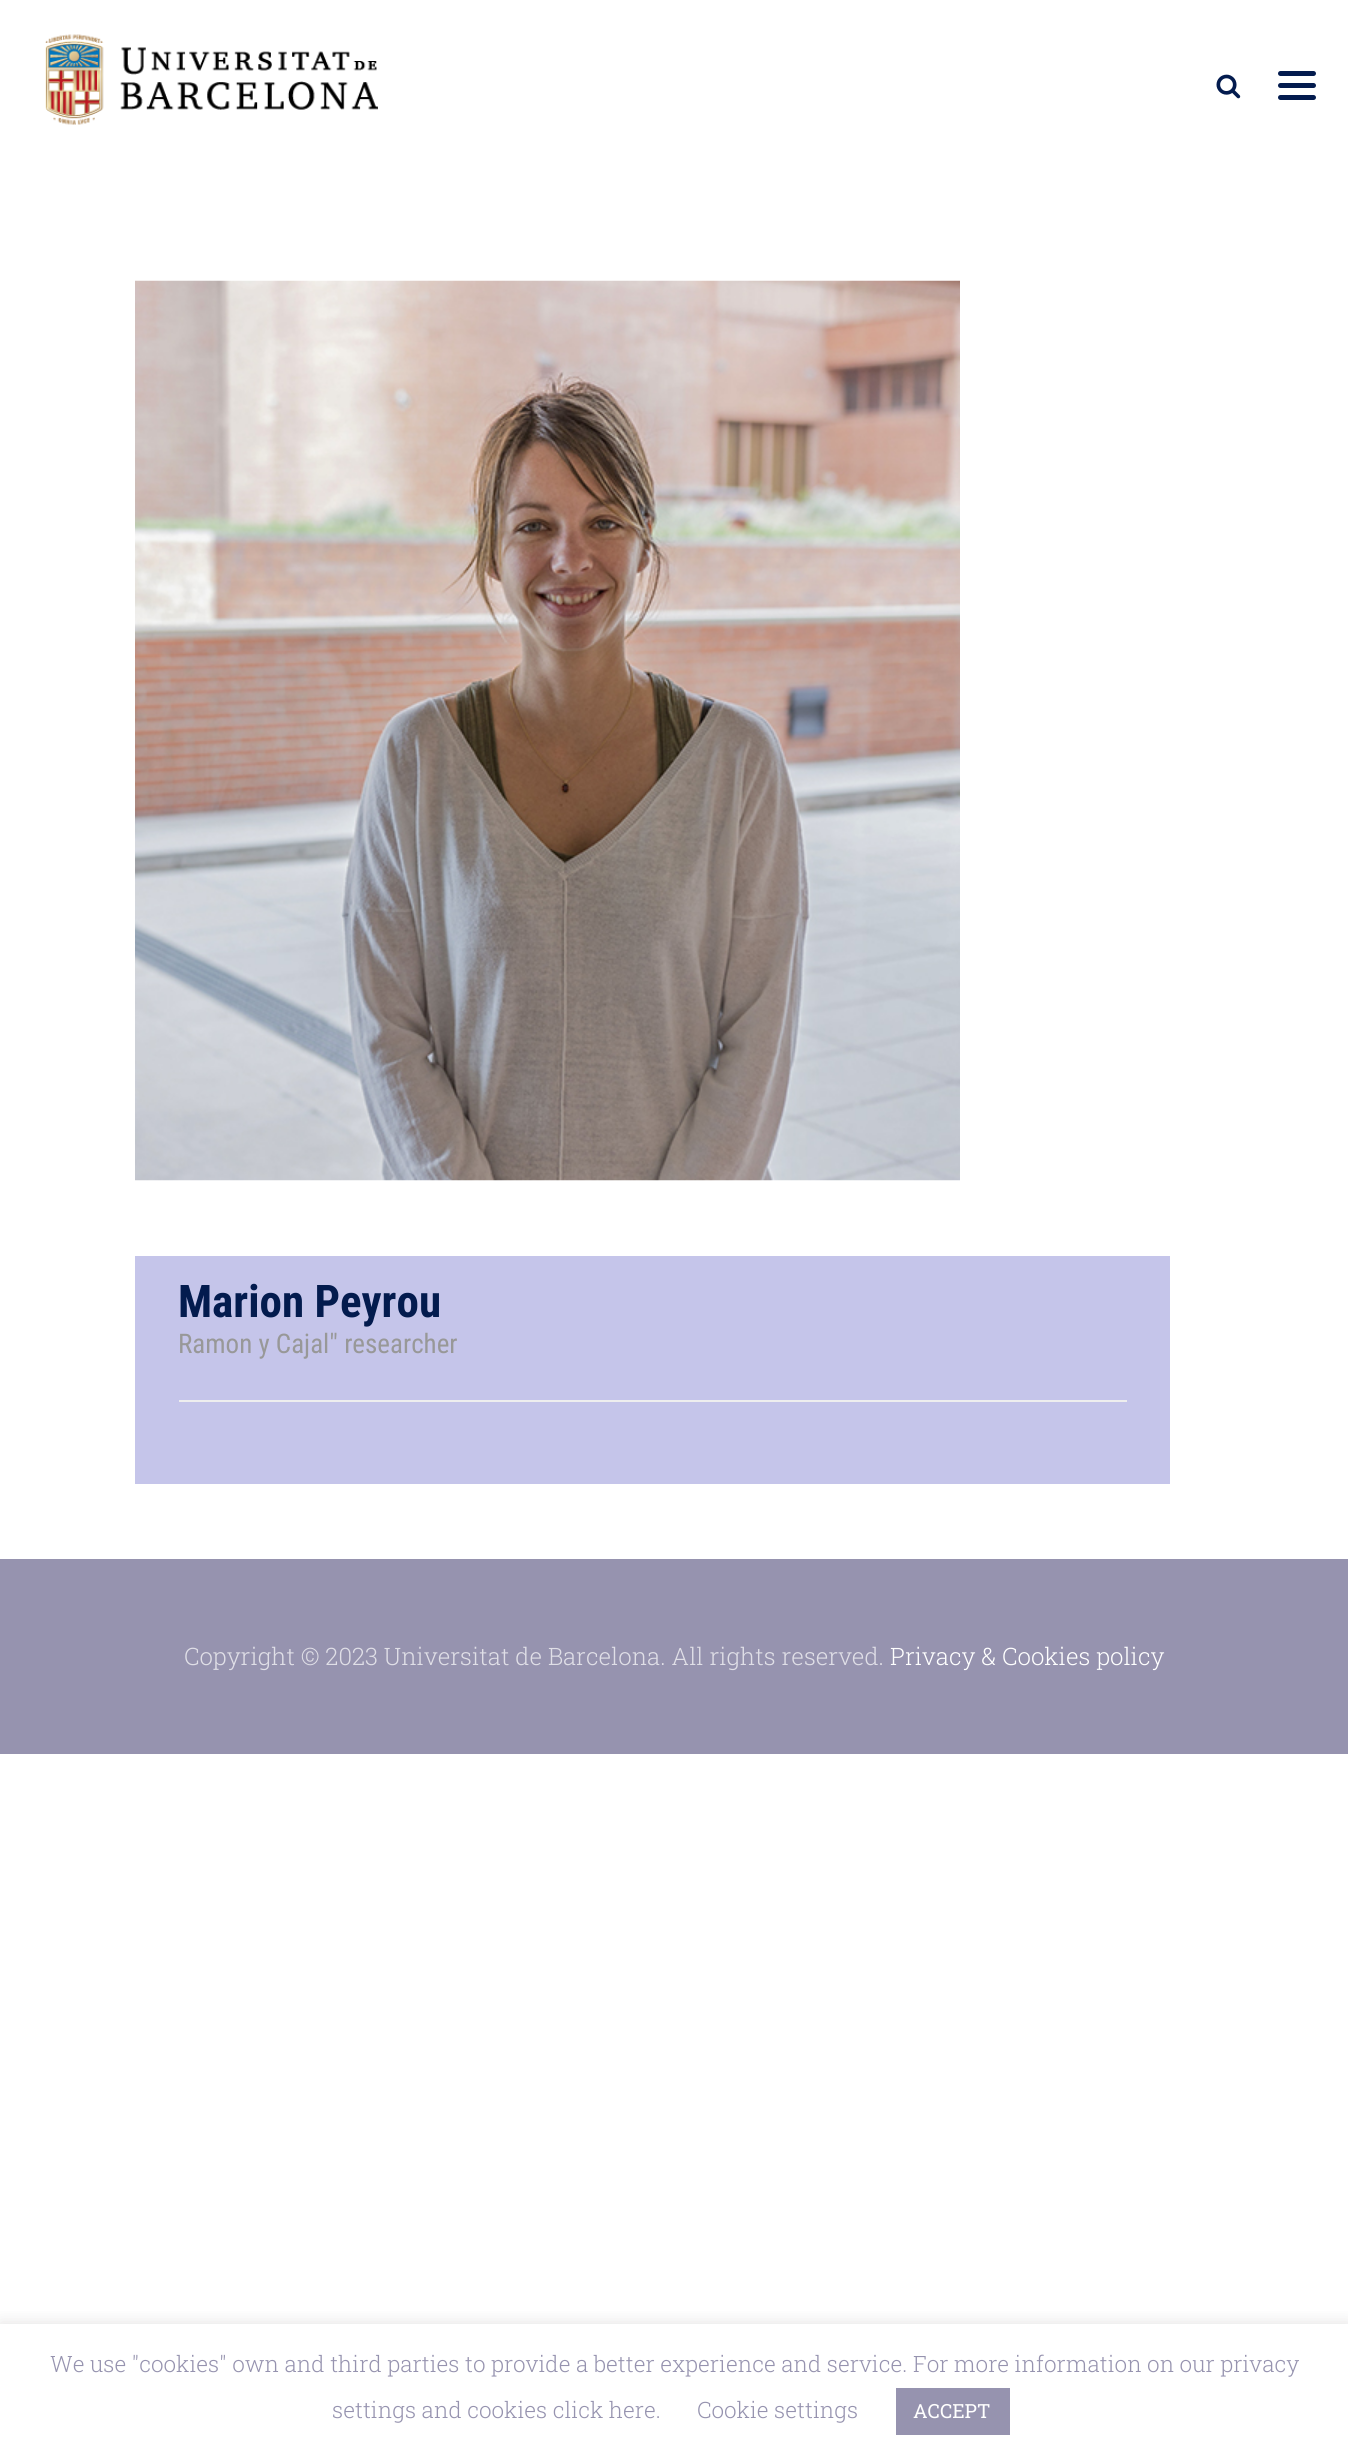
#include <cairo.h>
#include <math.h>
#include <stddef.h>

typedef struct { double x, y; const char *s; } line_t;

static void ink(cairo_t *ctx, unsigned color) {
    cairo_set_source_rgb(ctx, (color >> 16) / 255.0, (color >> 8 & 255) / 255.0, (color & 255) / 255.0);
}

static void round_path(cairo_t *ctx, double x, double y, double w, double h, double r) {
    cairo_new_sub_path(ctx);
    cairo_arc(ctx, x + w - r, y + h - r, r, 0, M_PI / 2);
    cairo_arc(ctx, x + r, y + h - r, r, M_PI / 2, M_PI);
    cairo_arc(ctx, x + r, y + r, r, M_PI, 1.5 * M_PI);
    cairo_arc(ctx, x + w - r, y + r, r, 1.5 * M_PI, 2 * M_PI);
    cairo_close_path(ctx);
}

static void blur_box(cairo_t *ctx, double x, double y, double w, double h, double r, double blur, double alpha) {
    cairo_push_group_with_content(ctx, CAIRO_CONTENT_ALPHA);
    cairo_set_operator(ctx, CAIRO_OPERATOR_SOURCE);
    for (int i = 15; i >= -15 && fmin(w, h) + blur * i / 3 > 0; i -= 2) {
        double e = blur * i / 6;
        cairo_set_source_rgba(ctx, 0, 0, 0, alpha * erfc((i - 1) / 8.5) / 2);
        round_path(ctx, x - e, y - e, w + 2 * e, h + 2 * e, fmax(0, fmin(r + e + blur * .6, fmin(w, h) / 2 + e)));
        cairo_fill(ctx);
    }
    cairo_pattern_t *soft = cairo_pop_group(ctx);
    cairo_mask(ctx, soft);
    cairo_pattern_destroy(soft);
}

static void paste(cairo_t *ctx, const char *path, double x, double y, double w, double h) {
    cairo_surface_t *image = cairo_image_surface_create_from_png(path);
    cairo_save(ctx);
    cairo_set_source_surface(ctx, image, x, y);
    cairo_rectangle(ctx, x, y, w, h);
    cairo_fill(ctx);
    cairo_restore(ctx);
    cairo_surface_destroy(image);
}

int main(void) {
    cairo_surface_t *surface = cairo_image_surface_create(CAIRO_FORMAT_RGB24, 1348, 2460);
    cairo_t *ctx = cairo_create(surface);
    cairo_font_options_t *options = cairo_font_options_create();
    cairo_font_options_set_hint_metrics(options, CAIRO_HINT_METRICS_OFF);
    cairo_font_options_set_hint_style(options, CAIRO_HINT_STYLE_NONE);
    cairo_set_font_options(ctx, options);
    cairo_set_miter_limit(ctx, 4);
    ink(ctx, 0xFFFFFF);
    cairo_paint(ctx);
    paste(ctx, "media/1.png", 45, 34, 333, 91);
    paste(ctx, "media/2.png", 1216, 74, 25, 25);
    ink(ctx, 0x031B4E);
    round_path(ctx, 1278, 83, 38, 5, 2.5);
    cairo_fill(ctx);
    round_path(ctx, 1278, 71, 38, 5, 2.5);
    cairo_fill(ctx);
    round_path(ctx, 1278, 95, 38, 5, 2.5);
    cairo_fill(ctx);
    paste(ctx, "media/3.png", 135, 280, 825, 901);
    ink(ctx, 0xC5C5EA);
    cairo_rectangle(ctx, 135, 1256, 1035, 228);
    cairo_fill(ctx);
    cairo_select_font_face(ctx, "Roboto Condensed", CAIRO_FONT_SLANT_NORMAL, CAIRO_FONT_WEIGHT_BOLD);
    cairo_set_font_size(ctx, 45);
    ink(ctx, 0x031B4E);
    cairo_move_to(ctx, 178, 1317);
    cairo_show_text(ctx, "Marion Peyrou");
    cairo_select_font_face(ctx, "Roboto Condensed", CAIRO_FONT_SLANT_NORMAL, CAIRO_FONT_WEIGHT_NORMAL);
    cairo_set_font_size(ctx, 27);
    ink(ctx, 0x989898);
    cairo_move_to(ctx, 178, 1353);
    cairo_show_text(ctx, "Ramon y Cajal\" researcher");
    ink(ctx, 0xEEEEEE);
    cairo_rectangle(ctx, 179, 1400, 948, 2);
    cairo_fill(ctx);
    ink(ctx, 0x9693AF);
    cairo_rectangle(ctx, 0, 1559, 1348, 195);
    cairo_fill(ctx);
    cairo_select_font_face(ctx, "Roboto Slab Light", CAIRO_FONT_SLANT_NORMAL, CAIRO_FONT_WEIGHT_NORMAL);
    cairo_set_font_size(ctx, 24);
    ink(ctx, 0xE0DFE7);
    cairo_move_to(ctx, 184, 1665);
    cairo_show_text(ctx, "Copyright © 2023 Universitat de Barcelona. All rights reserved.");
    ink(ctx, 0xFFFFFF);
    cairo_move_to(ctx, 890, 1665);
    cairo_show_text(ctx, "Privacy & Cookies policy");
    cairo_save(ctx);
    cairo_rectangle(ctx, 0, 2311, 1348, 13);
    cairo_clip(ctx);
    ink(ctx, 0xACABAB);
    blur_box(ctx, 0, 2322, 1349, 137, 0, 7.5, 0.3);
    cairo_restore(ctx);
    cairo_set_font_size(ctx, 22.5);
    ink(ctx, 0x9693AF);
    {
        static const line_t items[] = {
            {50, 2372, "We use \"cookies\" own and third parties to provide a better experience and service. For more information on our privacy"},
            {332, 2418, "settings and cookies click here."},
            {697, 2418, "Cookie settings"},
        };
        for (size_t i = 0; i < sizeof items / sizeof *items; i++) {
            cairo_move_to(ctx, items[i].x, items[i].y);
            cairo_show_text(ctx, items[i].s);
        }
    }
    cairo_rectangle(ctx, 896, 2388, 114, 47);
    cairo_fill(ctx);
    cairo_select_font_face(ctx, "Roboto Slab", CAIRO_FONT_SLANT_NORMAL, CAIRO_FONT_WEIGHT_NORMAL);
    cairo_set_font_size(ctx, 19.5);
    ink(ctx, 0xFFFFFF);
    cairo_move_to(ctx, 913, 2418);
    cairo_show_text(ctx, "ACCEPT");
    cairo_surface_write_to_png(surface, "image.png");
    cairo_font_options_destroy(options);
    cairo_destroy(ctx);
    cairo_surface_destroy(surface);
    return 0;
}
